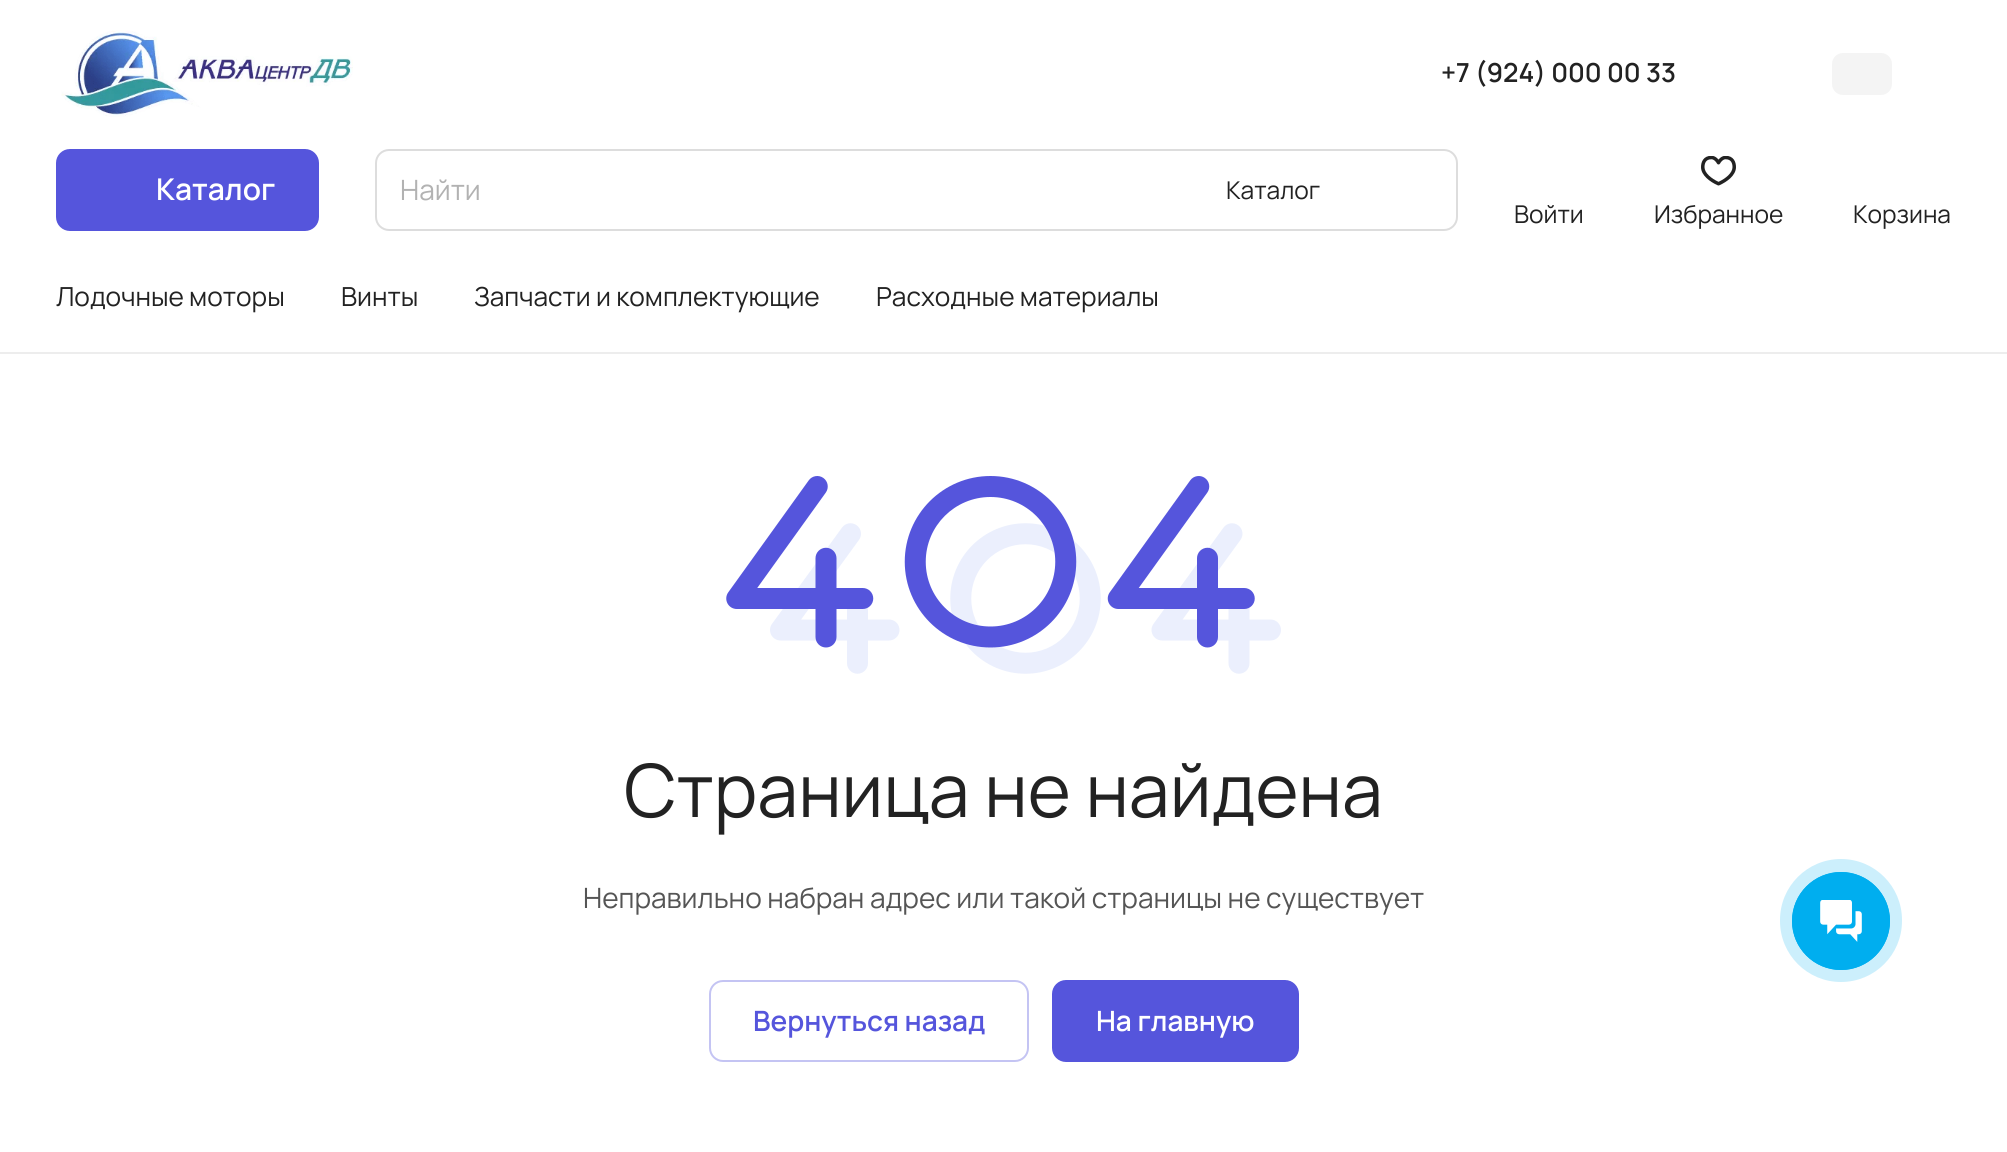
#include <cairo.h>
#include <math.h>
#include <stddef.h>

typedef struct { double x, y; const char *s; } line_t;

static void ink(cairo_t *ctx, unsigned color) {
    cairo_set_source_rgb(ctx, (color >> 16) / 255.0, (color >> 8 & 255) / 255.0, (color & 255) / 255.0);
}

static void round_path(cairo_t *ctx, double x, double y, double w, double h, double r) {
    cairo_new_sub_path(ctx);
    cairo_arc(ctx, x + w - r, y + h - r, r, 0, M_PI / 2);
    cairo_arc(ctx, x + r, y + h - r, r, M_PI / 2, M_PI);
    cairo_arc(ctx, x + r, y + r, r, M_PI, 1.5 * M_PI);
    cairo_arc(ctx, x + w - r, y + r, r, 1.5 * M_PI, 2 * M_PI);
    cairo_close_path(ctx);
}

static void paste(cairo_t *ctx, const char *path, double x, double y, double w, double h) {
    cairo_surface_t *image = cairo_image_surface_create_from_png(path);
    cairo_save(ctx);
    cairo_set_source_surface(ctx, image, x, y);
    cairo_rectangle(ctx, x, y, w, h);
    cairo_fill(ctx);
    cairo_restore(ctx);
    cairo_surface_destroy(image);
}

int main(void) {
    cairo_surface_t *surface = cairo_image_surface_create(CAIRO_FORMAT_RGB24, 2007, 1152);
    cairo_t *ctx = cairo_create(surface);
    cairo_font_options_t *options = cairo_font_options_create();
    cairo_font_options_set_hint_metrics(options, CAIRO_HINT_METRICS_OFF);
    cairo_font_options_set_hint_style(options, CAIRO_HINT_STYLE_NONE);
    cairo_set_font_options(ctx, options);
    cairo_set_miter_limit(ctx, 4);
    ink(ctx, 0xFFFFFF);
    cairo_paint(ctx);
    ink(ctx, 0xEDEDED);
    cairo_rectangle(ctx, 0, 352, 2007, 2);
    cairo_fill(ctx);
    paste(ctx, "media/1.png", 61, 30, 292, 87);
    cairo_select_font_face(ctx, "Manrope SemiBold", CAIRO_FONT_SLANT_NORMAL, CAIRO_FONT_WEIGHT_NORMAL);
    cairo_set_font_size(ctx, 26.25);
    ink(ctx, 0x222222);
    cairo_move_to(ctx, 1441, 82);
    cairo_show_text(ctx, "+7 (924) 000 00 33");
    ink(ctx, 0xF4F4F4);
    round_path(ctx, 1832, 53, 60, 42, 11);
    cairo_fill(ctx);
    ink(ctx, 0x5555DC);
    round_path(ctx, 57, 150, 261, 80, 13);
    cairo_fill_preserve(ctx);
    cairo_stroke(ctx);
    cairo_set_font_size(ctx, 30);
    ink(ctx, 0xFFFFFF);
    cairo_move_to(ctx, 156, 200);
    cairo_show_text(ctx, "Каталог");
    round_path(ctx, 376, 150, 1081, 80, 13);
    ink(ctx, 0xDDDDDD);
    cairo_stroke(ctx);
    cairo_select_font_face(ctx, "Manrope", CAIRO_FONT_SLANT_NORMAL, CAIRO_FONT_WEIGHT_NORMAL);
    cairo_set_font_size(ctx, 28);
    ink(ctx, 0xB2B2B2);
    cairo_move_to(ctx, 400, 200);
    cairo_show_text(ctx, "Найти");
    cairo_set_font_size(ctx, 24.5);
    ink(ctx, 0x222222);
    cairo_move_to(ctx, 1226, 199);
    cairo_show_text(ctx, "Каталог");
    cairo_move_to(ctx, 1514, 223);
    cairo_show_text(ctx, "Войти");
    paste(ctx, "media/2.png", 1701, 156, 35, 30);
    cairo_move_to(ctx, 1654, 223);
    cairo_show_text(ctx, "Избранное");
    cairo_move_to(ctx, 1853, 223);
    cairo_show_text(ctx, "Корзина");
    cairo_set_font_size(ctx, 26.25);
    {
        static const line_t items[] = {
            {56, 306, "Лодочные моторы"},
            {341, 306, "Винты"},
            {474, 306, "Запчасти и комплектующие"},
            {876, 306, "Расходные материалы"},
        };
        for (size_t i = 0; i < sizeof items / sizeof *items; i++) {
            cairo_move_to(ctx, items[i].x, items[i].y);
            cairo_show_text(ctx, items[i].s);
        }
    }
    paste(ctx, "media/3.png", 726, 476, 555, 198);
    cairo_set_font_size(ctx, 73.5);
    cairo_move_to(ctx, 624, 817);
    cairo_show_text(ctx, "Страница не найдена");
    cairo_set_font_size(ctx, 28);
    ink(ctx, 0x555555);
    cairo_move_to(ctx, 583, 908);
    cairo_show_text(ctx, "Неправильно набран адрес или такой страницы не существует");
    round_path(ctx, 710, 981, 318, 80, 13);
    ink(ctx, 0xC4C4F3);
    cairo_stroke(ctx);
    cairo_select_font_face(ctx, "Manrope SemiBold", CAIRO_FONT_SLANT_NORMAL, CAIRO_FONT_WEIGHT_NORMAL);
    ink(ctx, 0x5555DC);
    cairo_move_to(ctx, 753, 1031);
    cairo_show_text(ctx, "Вернуться назад");
    round_path(ctx, 1053, 981, 245, 80, 13);
    cairo_fill_preserve(ctx);
    cairo_stroke(ctx);
    ink(ctx, 0xFFFFFF);
    cairo_move_to(ctx, 1096, 1031);
    cairo_show_text(ctx, "На главную");
    ink(ctx, 0xCCEFFC);
    round_path(ctx, 1780, 859, 122, 123, 61);
    cairo_fill(ctx);
    cairo_arc(ctx, 1841, 921, 48.5, 0, 2 * M_PI);
    ink(ctx, 0x00AEEF);
    cairo_set_line_width(ctx, 1);
    cairo_stroke(ctx);
    cairo_arc(ctx, 1841, 921, 49, 0, 2 * M_PI);
    cairo_fill(ctx);
    paste(ctx, "media/4.png", 1820, 900, 42, 42);
    cairo_surface_write_to_png(surface, "image.png");
    cairo_font_options_destroy(options);
    cairo_destroy(ctx);
    cairo_surface_destroy(surface);
    return 0;
}
